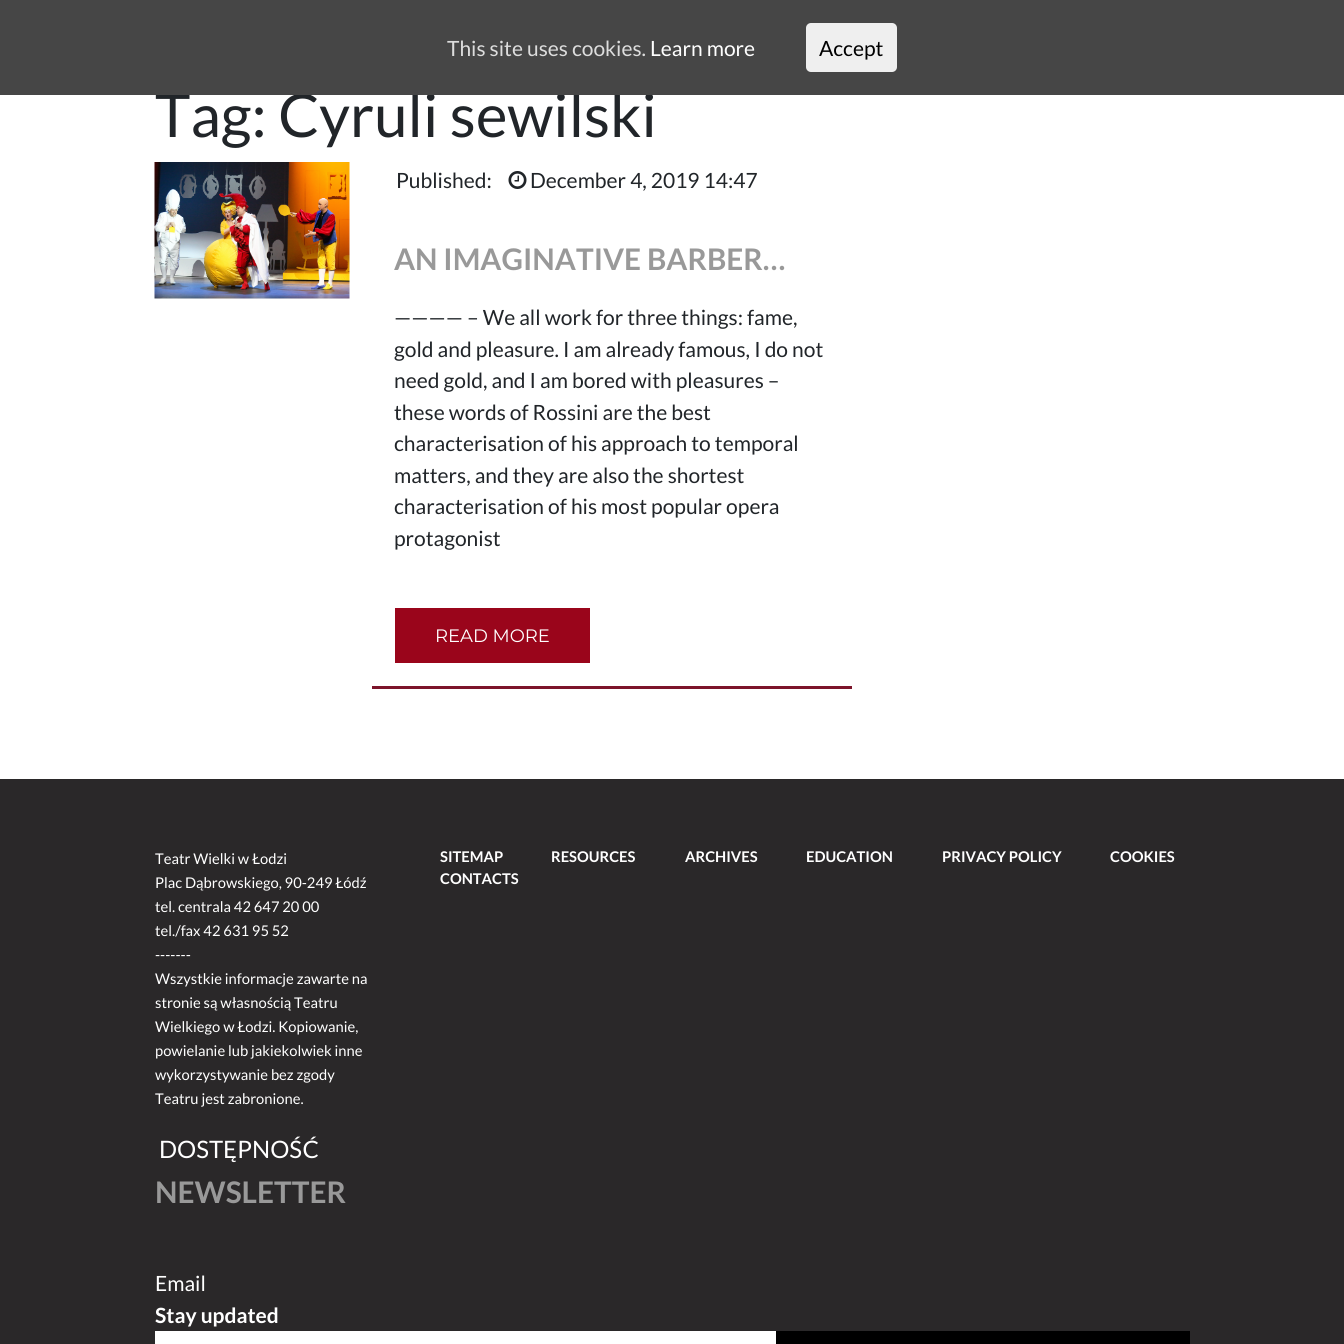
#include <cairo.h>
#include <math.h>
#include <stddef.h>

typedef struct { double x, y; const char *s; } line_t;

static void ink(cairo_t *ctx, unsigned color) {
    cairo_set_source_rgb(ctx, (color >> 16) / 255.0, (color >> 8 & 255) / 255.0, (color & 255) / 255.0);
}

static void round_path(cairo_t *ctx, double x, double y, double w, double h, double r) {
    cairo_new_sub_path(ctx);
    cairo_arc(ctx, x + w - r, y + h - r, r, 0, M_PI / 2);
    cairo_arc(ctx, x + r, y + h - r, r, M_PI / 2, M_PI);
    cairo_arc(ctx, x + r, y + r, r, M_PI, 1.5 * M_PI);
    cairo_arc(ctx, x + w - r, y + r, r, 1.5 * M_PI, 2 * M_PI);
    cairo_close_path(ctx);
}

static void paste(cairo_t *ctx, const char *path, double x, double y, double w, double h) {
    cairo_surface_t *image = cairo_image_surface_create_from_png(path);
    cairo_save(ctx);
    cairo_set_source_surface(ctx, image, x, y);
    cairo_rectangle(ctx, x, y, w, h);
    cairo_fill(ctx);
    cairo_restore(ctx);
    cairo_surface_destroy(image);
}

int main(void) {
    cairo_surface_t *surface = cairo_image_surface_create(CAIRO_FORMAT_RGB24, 1344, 1344);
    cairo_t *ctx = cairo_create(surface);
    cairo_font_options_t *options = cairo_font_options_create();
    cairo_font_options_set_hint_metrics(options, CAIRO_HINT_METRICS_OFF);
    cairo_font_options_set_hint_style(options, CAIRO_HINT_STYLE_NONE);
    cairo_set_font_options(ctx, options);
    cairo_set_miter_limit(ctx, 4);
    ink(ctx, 0xFFFFFF);
    cairo_paint(ctx);
    cairo_select_font_face(ctx, "Lato", CAIRO_FONT_SLANT_NORMAL, CAIRO_FONT_WEIGHT_NORMAL);
    cairo_set_font_size(ctx, 60);
    ink(ctx, 0x212529);
    cairo_move_to(ctx, 155, 137);
    cairo_show_text(ctx, "Tag: Cyruli sewilski");
    ink(ctx, 0x464646);
    cairo_rectangle(ctx, 0, 0, 1344, 95);
    cairo_fill(ctx);
    cairo_set_font_size(ctx, 21);
    ink(ctx, 0xDDDDDD);
    cairo_move_to(ctx, 447, 56);
    cairo_show_text(ctx, "This site uses cookies.");
    ink(ctx, 0xFFFFFF);
    cairo_move_to(ctx, 650, 56);
    cairo_show_text(ctx, "Learn more");
    ink(ctx, 0xEFEFEF);
    round_path(ctx, 806, 23, 91, 49, 5);
    cairo_fill(ctx);
    ink(ctx, 0x000000);
    cairo_move_to(ctx, 819, 56);
    cairo_show_text(ctx, "Accept");
    paste(ctx, "media/1.png", 154, 162, 196, 137);
    ink(ctx, 0x7C142A);
    cairo_rectangle(ctx, 372, 686, 480, 3);
    cairo_fill(ctx);
    ink(ctx, 0x212529);
    cairo_move_to(ctx, 396, 188);
    cairo_show_text(ctx, "Published:");
    paste(ctx, "media/2.png", 508, 171, 19, 18);
    cairo_move_to(ctx, 530, 188);
    cairo_show_text(ctx, "December 4, 2019 14:47");
    cairo_select_font_face(ctx, "Lato", CAIRO_FONT_SLANT_NORMAL, CAIRO_FONT_WEIGHT_BOLD);
    cairo_set_font_size(ctx, 29.75);
    ink(ctx, 0x999999);
    cairo_move_to(ctx, 394, 270);
    cairo_show_text(ctx, "AN IMAGINATIVE BARBER…");
    cairo_select_font_face(ctx, "Lato", CAIRO_FONT_SLANT_NORMAL, CAIRO_FONT_WEIGHT_NORMAL);
    cairo_set_font_size(ctx, 21);
    ink(ctx, 0x212529);
    {
        static const line_t items[] = {
            {394, 325, "———— – We all work for three things: fame,"},
            {394, 357, "gold and pleasure. I am already famous, I do not"},
            {394, 388, "need gold, and I am bored with pleasures –"},
            {394, 420, "these words of Rossini are the best"},
            {394, 451, "characterisation of his approach to temporal"},
            {394, 483, "matters, and they are also the shortest"},
            {394, 514, "characterisation of his most popular opera"},
            {394, 546, "protagonist"},
        };
        for (size_t i = 0; i < sizeof items / sizeof *items; i++) {
            cairo_move_to(ctx, items[i].x, items[i].y);
            cairo_show_text(ctx, items[i].s);
        }
    }
    ink(ctx, 0x9A051B);
    cairo_rectangle(ctx, 395, 608, 195, 55);
    cairo_fill(ctx);
    cairo_select_font_face(ctx, "Montserrat", CAIRO_FONT_SLANT_NORMAL, CAIRO_FONT_WEIGHT_NORMAL);
    cairo_set_font_size(ctx, 18);
    ink(ctx, 0xFFFFFF);
    cairo_move_to(ctx, 435, 642);
    cairo_show_text(ctx, "READ MORE");
    ink(ctx, 0x2A2829);
    cairo_rectangle(ctx, 0, 779, 1344, 565);
    cairo_fill(ctx);
    cairo_select_font_face(ctx, "Lato", CAIRO_FONT_SLANT_NORMAL, CAIRO_FONT_WEIGHT_NORMAL);
    cairo_set_font_size(ctx, 14.75);
    ink(ctx, 0xFFFFFF);
    {
        static const line_t items[] = {
            {155, 864, "Teatr Wielki w Łodzi"},
            {155, 888, "Plac Dąbrowskiego, 90-249 Łódź"},
            {155, 912, "tel. centrala 42 647 20 00"},
            {155, 936, "tel./fax 42 631 95 52"},
            {155, 960, "-------"},
            {155, 984, "Wszystkie informacje zawarte na"},
            {155, 1008, "stronie są własnością Teatru"},
            {155, 1032, "Wielkiego w Łodzi. Kopiowanie,"},
            {155, 1056, "powielanie lub jakiekolwiek inne"},
            {155, 1080, "wykorzystywanie bez zgody"},
            {155, 1104, "Teatru jest zabronione."},
        };
        for (size_t i = 0; i < sizeof items / sizeof *items; i++) {
            cairo_move_to(ctx, items[i].x, items[i].y);
            cairo_show_text(ctx, items[i].s);
        }
    }
    cairo_set_font_size(ctx, 24);
    cairo_move_to(ctx, 159, 1158);
    cairo_show_text(ctx, "DOSTĘPNOŚĆ");
    cairo_select_font_face(ctx, "Lato", CAIRO_FONT_SLANT_NORMAL, CAIRO_FONT_WEIGHT_BOLD);
    cairo_set_font_size(ctx, 14.75);
    {
        static const line_t items[] = {
            {440, 862, "SITEMAP"},
            {551, 862, "RESOURCES"},
            {685, 862, "ARCHIVES"},
            {806, 862, "EDUCATION"},
            {942, 862, "PRIVACY POLICY"},
            {1110, 862, "COOKIES"},
            {440, 884, "CONTACTS"},
        };
        for (size_t i = 0; i < sizeof items / sizeof *items; i++) {
            cairo_move_to(ctx, items[i].x, items[i].y);
            cairo_show_text(ctx, items[i].s);
        }
    }
    cairo_set_font_size(ctx, 29.75);
    ink(ctx, 0x999999);
    cairo_move_to(ctx, 155, 1203);
    cairo_show_text(ctx, "NEWSLETTER");
    cairo_select_font_face(ctx, "Lato", CAIRO_FONT_SLANT_NORMAL, CAIRO_FONT_WEIGHT_NORMAL);
    cairo_set_font_size(ctx, 21);
    ink(ctx, 0xFFFFFF);
    cairo_move_to(ctx, 155, 1291);
    cairo_show_text(ctx, "Email");
    cairo_select_font_face(ctx, "Lato", CAIRO_FONT_SLANT_NORMAL, CAIRO_FONT_WEIGHT_BOLD);
    cairo_move_to(ctx, 155, 1323);
    cairo_show_text(ctx, "Stay updated");
    cairo_rectangle(ctx, 155, 1331, 621, 13);
    cairo_fill(ctx);
    ink(ctx, 0x000000);
    cairo_rectangle(ctx, 776, 1331, 414, 13);
    cairo_fill(ctx);
    cairo_surface_write_to_png(surface, "image.png");
    cairo_font_options_destroy(options);
    cairo_destroy(ctx);
    cairo_surface_destroy(surface);
    return 0;
}
